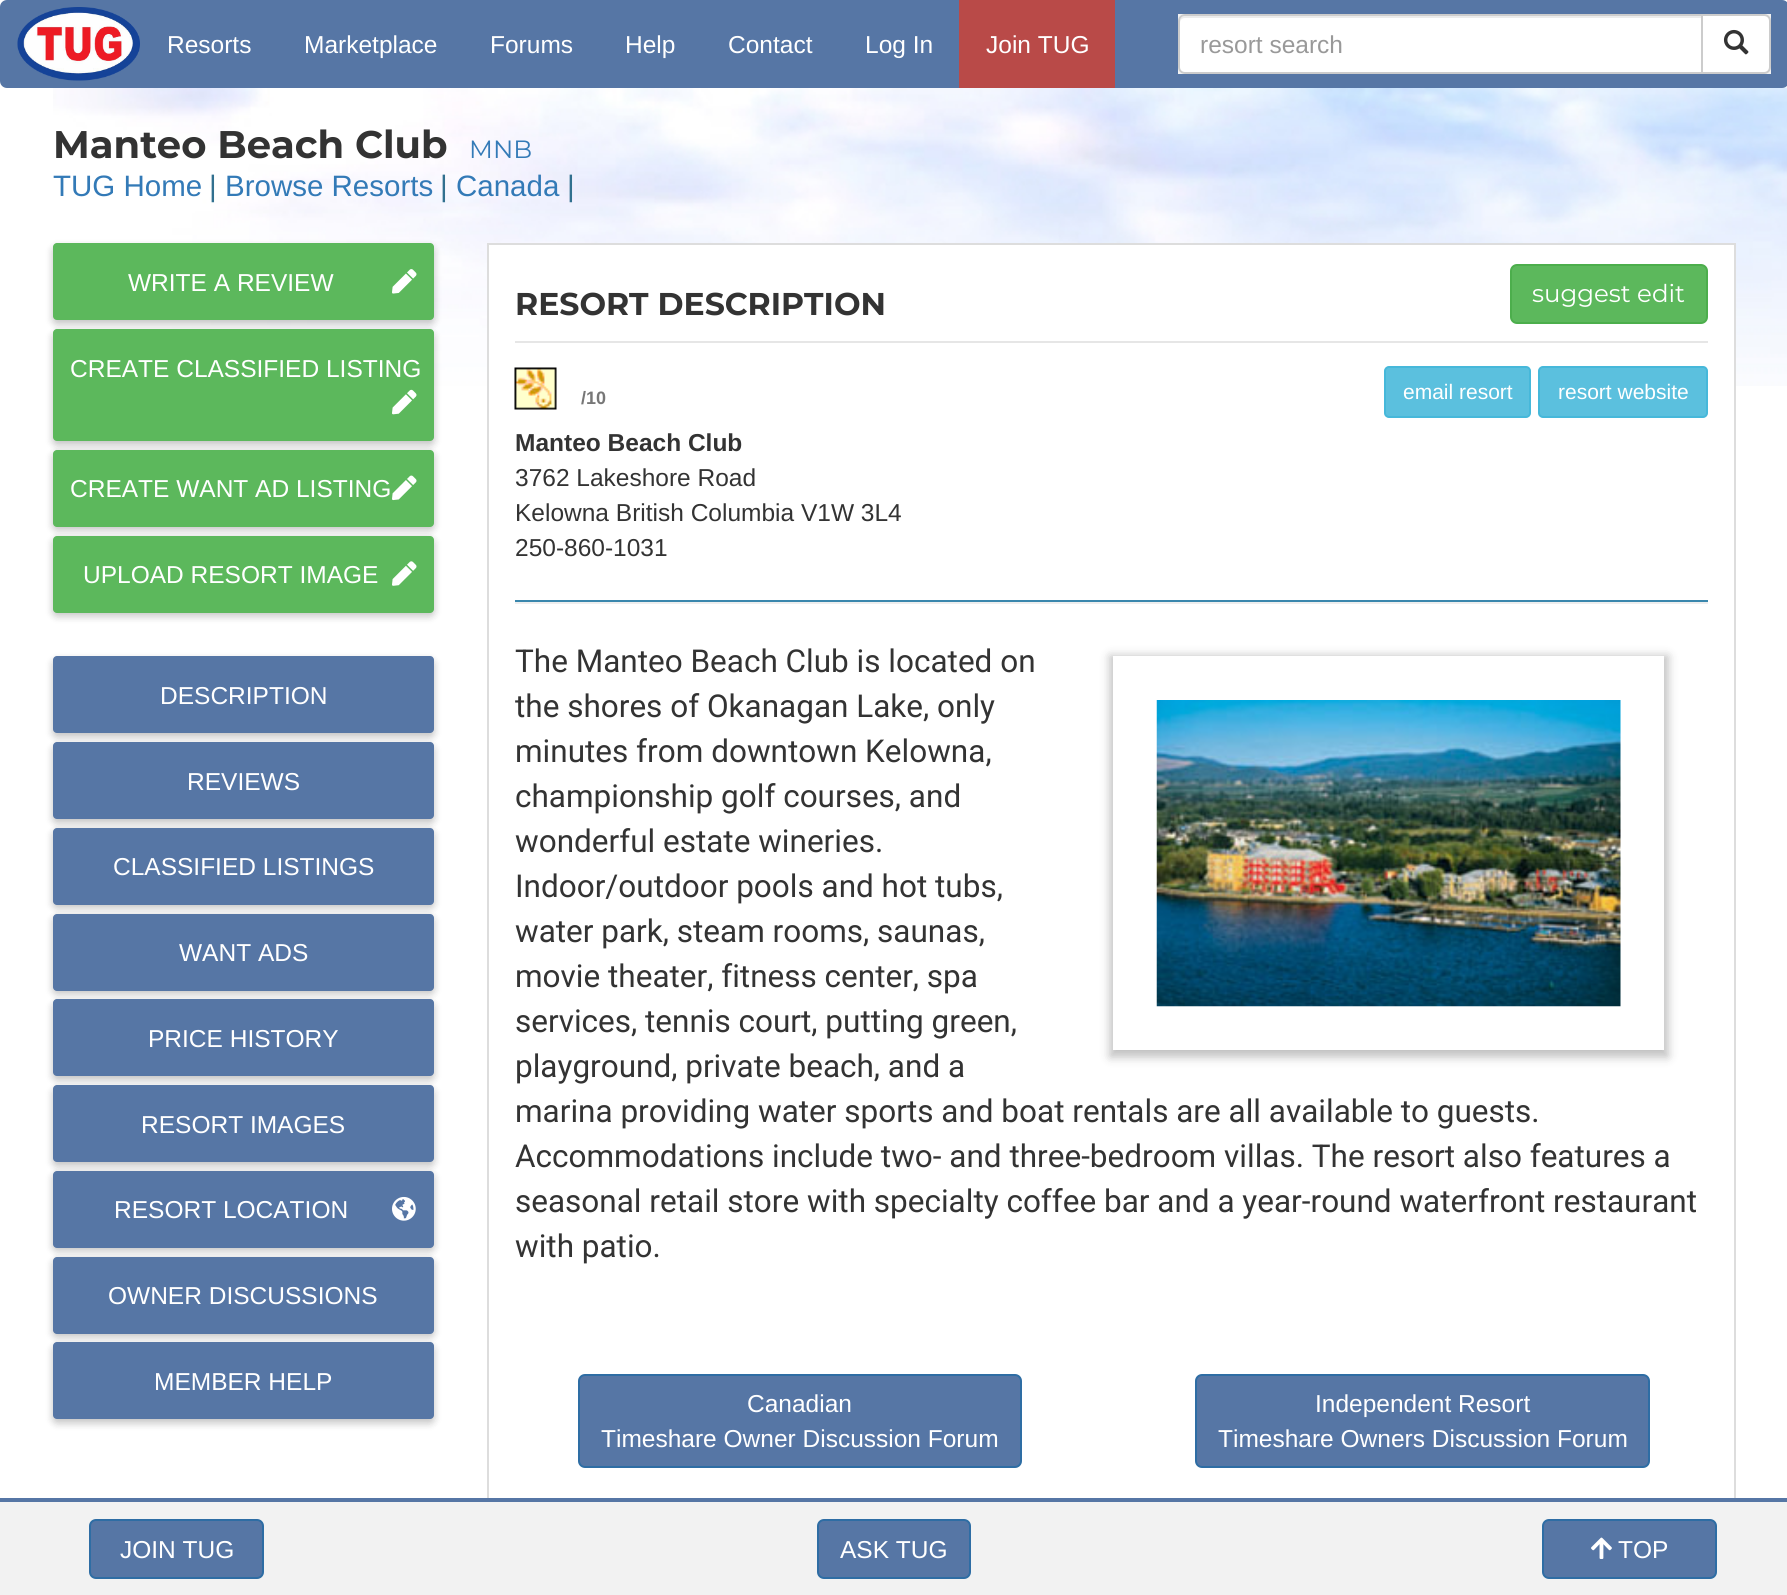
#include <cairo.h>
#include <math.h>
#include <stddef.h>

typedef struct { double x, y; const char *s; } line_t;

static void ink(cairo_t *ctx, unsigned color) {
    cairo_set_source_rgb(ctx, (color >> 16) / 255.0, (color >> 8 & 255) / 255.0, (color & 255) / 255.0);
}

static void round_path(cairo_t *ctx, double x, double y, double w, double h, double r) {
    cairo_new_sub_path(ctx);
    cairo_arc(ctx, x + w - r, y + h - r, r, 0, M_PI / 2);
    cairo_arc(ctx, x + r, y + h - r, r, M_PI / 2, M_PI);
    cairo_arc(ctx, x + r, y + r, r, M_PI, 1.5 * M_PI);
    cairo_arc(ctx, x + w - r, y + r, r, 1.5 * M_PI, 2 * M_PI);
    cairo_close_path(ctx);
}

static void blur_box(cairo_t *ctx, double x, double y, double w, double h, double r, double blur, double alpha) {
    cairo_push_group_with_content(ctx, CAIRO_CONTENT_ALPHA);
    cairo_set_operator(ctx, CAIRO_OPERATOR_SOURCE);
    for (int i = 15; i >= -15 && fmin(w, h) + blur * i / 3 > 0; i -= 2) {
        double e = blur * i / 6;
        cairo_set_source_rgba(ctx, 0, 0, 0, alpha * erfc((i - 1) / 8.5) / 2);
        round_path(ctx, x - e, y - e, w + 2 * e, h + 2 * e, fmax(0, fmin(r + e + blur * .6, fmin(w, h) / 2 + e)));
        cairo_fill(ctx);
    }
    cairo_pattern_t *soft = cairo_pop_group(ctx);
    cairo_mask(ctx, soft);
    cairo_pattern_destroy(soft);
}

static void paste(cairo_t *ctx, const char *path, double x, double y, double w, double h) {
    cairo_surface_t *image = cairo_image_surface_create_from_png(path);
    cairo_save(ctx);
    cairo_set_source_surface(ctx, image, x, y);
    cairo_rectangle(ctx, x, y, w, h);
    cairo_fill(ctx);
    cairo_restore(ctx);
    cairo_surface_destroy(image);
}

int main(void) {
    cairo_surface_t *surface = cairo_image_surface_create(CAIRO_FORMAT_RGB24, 1787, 1595);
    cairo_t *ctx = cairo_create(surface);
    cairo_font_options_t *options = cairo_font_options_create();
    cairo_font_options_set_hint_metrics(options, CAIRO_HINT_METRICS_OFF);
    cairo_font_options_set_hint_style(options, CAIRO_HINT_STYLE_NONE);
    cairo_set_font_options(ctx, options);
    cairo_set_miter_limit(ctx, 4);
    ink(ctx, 0xFFFFFF);
    cairo_paint(ctx);
    paste(ctx, "media/1.png", 53, 87, 1734, 299);
    ink(ctx, 0x5676A5);
    round_path(ctx, 0, 0, 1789, 88, 7);
    cairo_fill(ctx);
    paste(ctx, "media/2.png", 17, 7, 123, 74);
    cairo_select_font_face(ctx, "Liberation Sans", CAIRO_FONT_SLANT_NORMAL, CAIRO_FONT_WEIGHT_NORMAL);
    cairo_set_font_size(ctx, 24.5);
    ink(ctx, 0xFFFFFF);
    {
        static const line_t items[] = {
            {167, 53, "Resorts"},
            {304, 53, "Marketplace"},
            {490, 53, "Forums"},
            {625, 53, "Help"},
            {728, 53, "Contact"},
            {865, 53, "Log In"},
        };
        for (size_t i = 0; i < sizeof items / sizeof *items; i++) {
            cairo_move_to(ctx, items[i].x, items[i].y);
            cairo_show_text(ctx, items[i].s);
        }
    }
    ink(ctx, 0xB94A48);
    cairo_rectangle(ctx, 959, 0, 156, 88);
    cairo_fill(ctx);
    ink(ctx, 0xFFFFFF);
    cairo_move_to(ctx, 986, 53);
    cairo_show_text(ctx, "Join TUG");
    ink(ctx, 0xF2F2F2);
    cairo_rectangle(ctx, 1178, 14, 593, 60);
    cairo_fill(ctx);
    ink(ctx, 0xFFFFFF);
    cairo_new_path(ctx);
    cairo_move_to(ctx, 1185, 14);
    cairo_line_to(ctx, 1703, 14);
    cairo_line_to(ctx, 1703, 74);
    cairo_line_to(ctx, 1185, 74);
    cairo_curve_to(ctx, 1181, 74, 1178, 71, 1178, 67);
    cairo_line_to(ctx, 1178, 21);
    cairo_curve_to(ctx, 1178, 17, 1181, 14, 1185, 14);
    cairo_close_path(ctx);
    cairo_fill(ctx);
    ink(ctx, 0xECECEC);
    cairo_new_path(ctx);
    cairo_move_to(ctx, 1185, 18);
    cairo_line_to(ctx, 1701, 18);
    cairo_line_to(ctx, 1701, 16);
    cairo_line_to(ctx, 1185, 16);
    cairo_curve_to(ctx, 1182, 16, 1180, 18, 1180, 21);
    cairo_line_to(ctx, 1180, 23);
    cairo_curve_to(ctx, 1180, 20, 1182, 18, 1185, 18);
    cairo_close_path(ctx);
    cairo_fill(ctx);
    cairo_new_path(ctx);
    cairo_move_to(ctx, 1185, 15);
    cairo_line_to(ctx, 1702, 15);
    cairo_line_to(ctx, 1702, 73);
    cairo_line_to(ctx, 1185, 73);
    cairo_curve_to(ctx, 1181.5, 73, 1179, 70.5, 1179, 67);
    cairo_line_to(ctx, 1179, 21);
    cairo_curve_to(ctx, 1179, 17.5, 1181.5, 15, 1185, 15);
    cairo_close_path(ctx);
    ink(ctx, 0xCCCCCC);
    cairo_stroke(ctx);
    ink(ctx, 0x999999);
    cairo_move_to(ctx, 1200, 53);
    cairo_show_text(ctx, "resort search");
    ink(ctx, 0xFFFFFF);
    cairo_new_path(ctx);
    cairo_move_to(ctx, 1702, 15);
    cairo_line_to(ctx, 1764, 15);
    cairo_curve_to(ctx, 1767.5, 15, 1770, 17.5, 1770, 21);
    cairo_line_to(ctx, 1770, 67);
    cairo_curve_to(ctx, 1770, 70.5, 1767.5, 73, 1764, 73);
    cairo_line_to(ctx, 1702, 73);
    cairo_close_path(ctx);
    cairo_fill_preserve(ctx);
    ink(ctx, 0xCCCCCC);
    cairo_stroke(ctx);
    paste(ctx, "media/3.png", 1723, 29, 26, 26);
    cairo_select_font_face(ctx, "Montserrat", CAIRO_FONT_SLANT_NORMAL, CAIRO_FONT_WEIGHT_BOLD);
    cairo_set_font_size(ctx, 38.5);
    ink(ctx, 0x333333);
    cairo_move_to(ctx, 53, 158);
    cairo_show_text(ctx, "Manteo Beach Club");
    cairo_select_font_face(ctx, "Montserrat", CAIRO_FONT_SLANT_NORMAL, CAIRO_FONT_WEIGHT_NORMAL);
    cairo_set_font_size(ctx, 25);
    ink(ctx, 0x337AB7);
    cairo_move_to(ctx, 469, 158);
    cairo_show_text(ctx, "MNB");
    cairo_select_font_face(ctx, "Liberation Sans", CAIRO_FONT_SLANT_NORMAL, CAIRO_FONT_WEIGHT_NORMAL);
    cairo_set_font_size(ctx, 29.5);
    cairo_move_to(ctx, 53, 196);
    cairo_show_text(ctx, "TUG Home");
    ink(ctx, 0x31708F);
    cairo_move_to(ctx, 209, 196);
    cairo_show_text(ctx, "|");
    ink(ctx, 0x337AB7);
    cairo_move_to(ctx, 225, 196);
    cairo_show_text(ctx, "Browse Resorts");
    ink(ctx, 0x31708F);
    cairo_move_to(ctx, 440, 196);
    cairo_show_text(ctx, "|");
    ink(ctx, 0x337AB7);
    cairo_move_to(ctx, 456, 196);
    cairo_show_text(ctx, "Canada");
    ink(ctx, 0x31708F);
    cairo_move_to(ctx, 567, 196);
    cairo_show_text(ctx, "|");
    ink(ctx, 0x000000);
    blur_box(ctx, 53, 247, 381, 77, 4, 4.5, 0.15);
    blur_box(ctx, 53, 247, 381, 77, 4, 3.5, 0.1);
    ink(ctx, 0x5CB85C);
    round_path(ctx, 53, 243, 381, 77, 4);
    cairo_fill(ctx);
    cairo_set_font_size(ctx, 24.5);
    ink(ctx, 0xFFFFFF);
    cairo_move_to(ctx, 128, 291);
    cairo_show_text(ctx, "WRITE A REVIEW");
    paste(ctx, "media/4.png", 392, 269, 25, 25);
    ink(ctx, 0x000000);
    blur_box(ctx, 53, 333, 381, 112, 4, 4.5, 0.15);
    blur_box(ctx, 53, 333, 381, 112, 4, 3.5, 0.1);
    ink(ctx, 0x5CB85C);
    round_path(ctx, 53, 329, 381, 112, 4);
    cairo_fill(ctx);
    ink(ctx, 0xFFFFFF);
    cairo_move_to(ctx, 70, 377);
    cairo_show_text(ctx, "CREATE CLASSIFIED LISTING");
    paste(ctx, "media/5.png", 392, 389, 25, 26);
    ink(ctx, 0x000000);
    blur_box(ctx, 53, 453, 381, 77, 4, 4.5, 0.15);
    blur_box(ctx, 53, 453, 381, 77, 4, 3.5, 0.1);
    ink(ctx, 0x5CB85C);
    round_path(ctx, 53, 450, 381, 77, 4);
    cairo_fill(ctx);
    ink(ctx, 0xFFFFFF);
    cairo_move_to(ctx, 70, 497);
    cairo_show_text(ctx, "CREATE WANT AD LISTING");
    paste(ctx, "media/6.png", 392, 475, 25, 26);
    ink(ctx, 0x000000);
    blur_box(ctx, 53, 539, 381, 77, 4, 4.5, 0.15);
    blur_box(ctx, 53, 539, 381, 77, 4, 3.5, 0.1);
    ink(ctx, 0x5CB85C);
    round_path(ctx, 53, 536, 381, 77, 4);
    cairo_fill(ctx);
    ink(ctx, 0xFFFFFF);
    cairo_move_to(ctx, 83, 583);
    cairo_show_text(ctx, "UPLOAD RESORT IMAGE");
    paste(ctx, "media/7.png", 392, 561, 25, 25);
    ink(ctx, 0x000000);
    blur_box(ctx, 53, 660, 381, 77, 4, 4.5, 0.15);
    blur_box(ctx, 53, 660, 381, 77, 4, 3.5, 0.1);
    ink(ctx, 0x5676A5);
    round_path(ctx, 53, 656, 381, 77, 4);
    cairo_fill(ctx);
    ink(ctx, 0xFFFFFF);
    cairo_move_to(ctx, 160, 704);
    cairo_show_text(ctx, "DESCRIPTION");
    ink(ctx, 0x000000);
    blur_box(ctx, 53, 746, 381, 77, 4, 4.5, 0.15);
    blur_box(ctx, 53, 746, 381, 77, 4, 3.5, 0.1);
    ink(ctx, 0x5676A5);
    round_path(ctx, 53, 742, 381, 77, 4);
    cairo_fill(ctx);
    ink(ctx, 0xFFFFFF);
    cairo_move_to(ctx, 187, 790);
    cairo_show_text(ctx, "REVIEWS");
    ink(ctx, 0x000000);
    blur_box(ctx, 53, 831, 381, 77, 4, 4.5, 0.15);
    blur_box(ctx, 53, 831, 381, 77, 4, 3.5, 0.1);
    ink(ctx, 0x5676A5);
    round_path(ctx, 53, 828, 381, 77, 4);
    cairo_fill(ctx);
    ink(ctx, 0xFFFFFF);
    cairo_move_to(ctx, 113, 875);
    cairo_show_text(ctx, "CLASSIFIED LISTINGS");
    ink(ctx, 0x000000);
    blur_box(ctx, 53, 917, 381, 77, 4, 4.5, 0.15);
    blur_box(ctx, 53, 917, 381, 77, 4, 3.5, 0.1);
    ink(ctx, 0x5676A5);
    round_path(ctx, 53, 914, 381, 77, 4);
    cairo_fill(ctx);
    ink(ctx, 0xFFFFFF);
    cairo_move_to(ctx, 179, 961);
    cairo_show_text(ctx, "WANT ADS");
    ink(ctx, 0x000000);
    blur_box(ctx, 53, 1003, 381, 77, 4, 4.5, 0.15);
    blur_box(ctx, 53, 1003, 381, 77, 4, 3.5, 0.1);
    ink(ctx, 0x5676A5);
    round_path(ctx, 53, 999, 381, 77, 4);
    cairo_fill(ctx);
    ink(ctx, 0xFFFFFF);
    cairo_move_to(ctx, 148, 1047);
    cairo_show_text(ctx, "PRICE HISTORY");
    ink(ctx, 0x000000);
    blur_box(ctx, 53, 1089, 381, 77, 4, 4.5, 0.15);
    blur_box(ctx, 53, 1089, 381, 77, 4, 3.5, 0.1);
    ink(ctx, 0x5676A5);
    round_path(ctx, 53, 1085, 381, 77, 4);
    cairo_fill(ctx);
    ink(ctx, 0xFFFFFF);
    cairo_move_to(ctx, 141, 1133);
    cairo_show_text(ctx, "RESORT IMAGES");
    ink(ctx, 0x000000);
    blur_box(ctx, 53, 1174, 381, 77, 4, 4.5, 0.15);
    blur_box(ctx, 53, 1174, 381, 77, 4, 3.5, 0.1);
    ink(ctx, 0x5676A5);
    round_path(ctx, 53, 1171, 381, 77, 4);
    cairo_fill(ctx);
    ink(ctx, 0xFFFFFF);
    cairo_move_to(ctx, 114, 1218);
    cairo_show_text(ctx, "RESORT LOCATION");
    paste(ctx, "media/8.png", 392, 1196, 24, 25);
    ink(ctx, 0x000000);
    blur_box(ctx, 53, 1260, 381, 77, 4, 4.5, 0.15);
    blur_box(ctx, 53, 1260, 381, 77, 4, 3.5, 0.1);
    ink(ctx, 0x5676A5);
    round_path(ctx, 53, 1257, 381, 77, 4);
    cairo_fill(ctx);
    ink(ctx, 0xFFFFFF);
    cairo_move_to(ctx, 108, 1304);
    cairo_show_text(ctx, "OWNER DISCUSSIONS");
    ink(ctx, 0x000000);
    blur_box(ctx, 53, 1346, 381, 77, 4, 4.5, 0.15);
    blur_box(ctx, 53, 1346, 381, 77, 4, 3.5, 0.1);
    ink(ctx, 0x5676A5);
    round_path(ctx, 53, 1342, 381, 77, 4);
    cairo_fill(ctx);
    ink(ctx, 0xFFFFFF);
    cairo_move_to(ctx, 154, 1390);
    cairo_show_text(ctx, "MEMBER HELP");
    cairo_rectangle(ctx, 489, 245, 1245, 141);
    cairo_fill(ctx);
    cairo_rectangle(ctx, 488, 244, 1247, 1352);
    ink(ctx, 0xDDDDDD);
    cairo_stroke(ctx);
    ink(ctx, 0xE6E6E6);
    cairo_rectangle(ctx, 515, 341, 1193, 2);
    cairo_fill(ctx);
    cairo_select_font_face(ctx, "Montserrat", CAIRO_FONT_SLANT_NORMAL, CAIRO_FONT_WEIGHT_BOLD);
    cairo_set_font_size(ctx, 31.5);
    ink(ctx, 0x333333);
    cairo_move_to(ctx, 515, 315);
    cairo_show_text(ctx, "RESORT DESCRIPTION");
    ink(ctx, 0x5CB85C);
    round_path(ctx, 1511, 265, 196, 58, 6);
    cairo_fill_preserve(ctx);
    ink(ctx, 0x4CAE4C);
    cairo_stroke(ctx);
    cairo_select_font_face(ctx, "Montserrat", CAIRO_FONT_SLANT_NORMAL, CAIRO_FONT_WEIGHT_NORMAL);
    cairo_set_font_size(ctx, 24.5);
    ink(ctx, 0xFFFFFF);
    cairo_move_to(ctx, 1532, 302);
    cairo_show_text(ctx, "suggest edit");
    paste(ctx, "media/9.png", 514, 367, 43, 43);
    cairo_select_font_face(ctx, "Liberation Sans", CAIRO_FONT_SLANT_NORMAL, CAIRO_FONT_WEIGHT_BOLD);
    cairo_set_font_size(ctx, 18);
    ink(ctx, 0x777777);
    cairo_move_to(ctx, 581, 404);
    cairo_show_text(ctx, "/10");
    cairo_set_font_size(ctx, 24.5);
    ink(ctx, 0x333333);
    cairo_move_to(ctx, 515, 451);
    cairo_show_text(ctx, "Manteo Beach Club");
    cairo_select_font_face(ctx, "Liberation Sans", CAIRO_FONT_SLANT_NORMAL, CAIRO_FONT_WEIGHT_NORMAL);
    {
        static const line_t items[] = {
            {515, 486, "3762 Lakeshore Road"},
            {515, 521, "Kelowna British Columbia V1W 3L4"},
            {515, 556, "250-860-1031"},
        };
        for (size_t i = 0; i < sizeof items / sizeof *items; i++) {
            cairo_move_to(ctx, items[i].x, items[i].y);
            cairo_show_text(ctx, items[i].s);
        }
    }
    ink(ctx, 0x5BC0DE);
    round_path(ctx, 1385, 367, 145, 50, 4);
    cairo_fill_preserve(ctx);
    ink(ctx, 0x46B8DA);
    cairo_stroke(ctx);
    cairo_set_font_size(ctx, 21);
    ink(ctx, 0xFFFFFF);
    cairo_move_to(ctx, 1403, 399);
    cairo_show_text(ctx, "email resort");
    ink(ctx, 0x5BC0DE);
    round_path(ctx, 1539, 367, 168, 50, 4);
    cairo_fill_preserve(ctx);
    ink(ctx, 0x46B8DA);
    cairo_stroke(ctx);
    ink(ctx, 0xFFFFFF);
    cairo_move_to(ctx, 1558, 399);
    cairo_show_text(ctx, "resort website");
    ink(ctx, 0x3A87AD);
    cairo_rectangle(ctx, 515, 600, 1193, 2);
    cairo_fill(ctx);
    ink(ctx, 0xEEEEEE);
    cairo_rectangle(ctx, 515, 602, 1193, 2);
    cairo_fill(ctx);
    cairo_save(ctx);
    cairo_set_fill_rule(ctx, CAIRO_FILL_RULE_EVEN_ODD);
    cairo_new_path(ctx);
    cairo_move_to(ctx, 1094, 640);
    cairo_line_to(ctx, 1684, 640);
    cairo_line_to(ctx, 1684, 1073);
    cairo_line_to(ctx, 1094, 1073);
    cairo_close_path(ctx);
    cairo_move_to(ctx, 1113, 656);
    cairo_line_to(ctx, 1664, 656);
    cairo_line_to(ctx, 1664, 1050);
    cairo_line_to(ctx, 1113, 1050);
    cairo_close_path(ctx);
    cairo_clip(ctx);
    ink(ctx, 0x000000);
    blur_box(ctx, 1110, 656, 558, 401, 0, 5, 0.25);
    cairo_restore(ctx);
    paste(ctx, "media/10.png", 1156, 700, 465, 307);
    cairo_select_font_face(ctx, "Roboto", CAIRO_FONT_SLANT_NORMAL, CAIRO_FONT_WEIGHT_NORMAL);
    cairo_set_font_size(ctx, 31.5);
    ink(ctx, 0x333333);
    {
        static const line_t items[] = {
            {515, 672, "The Manteo Beach Club is located on"},
            {515, 717, "the shores of Okanagan Lake, only"},
            {515, 762, "minutes from downtown Kelowna,"},
            {515, 807, "championship golf courses, and"},
            {515, 852, "wonderful estate wineries."},
            {515, 897, "Indoor/outdoor pools and hot tubs,"},
            {515, 942, "water park, steam rooms, saunas,"},
            {515, 987, "movie theater, fitness center, spa"},
            {515, 1032, "services, tennis court, putting green,"},
            {515, 1077, "playground, private beach, and a"},
            {515, 1122, "marina providing water sports and boat rentals are all available to guests."},
            {515, 1167, "Accommodations include two- and three-bedroom villas. The resort also features a"},
            {515, 1212, "seasonal retail store with specialty coffee bar and a year-round waterfront restaurant"},
            {515, 1257, "with patio."},
        };
        for (size_t i = 0; i < sizeof items / sizeof *items; i++) {
            cairo_move_to(ctx, items[i].x, items[i].y);
            cairo_show_text(ctx, items[i].s);
        }
    }
    ink(ctx, 0x5676A5);
    round_path(ctx, 579, 1375, 442, 92, 6);
    cairo_fill_preserve(ctx);
    ink(ctx, 0x2E6DA4);
    cairo_stroke(ctx);
    cairo_select_font_face(ctx, "Liberation Sans", CAIRO_FONT_SLANT_NORMAL, CAIRO_FONT_WEIGHT_NORMAL);
    cairo_set_font_size(ctx, 24.5);
    ink(ctx, 0xFFFFFF);
    cairo_move_to(ctx, 747, 1412);
    cairo_show_text(ctx, "Canadian");
    cairo_move_to(ctx, 601, 1447);
    cairo_show_text(ctx, "Timeshare Owner Discussion Forum");
    ink(ctx, 0x5676A5);
    round_path(ctx, 1196, 1375, 453, 92, 6);
    cairo_fill_preserve(ctx);
    ink(ctx, 0x2E6DA4);
    cairo_stroke(ctx);
    ink(ctx, 0xFFFFFF);
    cairo_move_to(ctx, 1315, 1412);
    cairo_show_text(ctx, "Independent Resort");
    cairo_move_to(ctx, 1218, 1447);
    cairo_show_text(ctx, "Timeshare Owners Discussion Forum");
    ink(ctx, 0xF2F2F2);
    cairo_rectangle(ctx, 0, 1502, 1787, 93);
    cairo_fill(ctx);
    ink(ctx, 0x5676A5);
    cairo_rectangle(ctx, 0, 1498, 1787, 4);
    cairo_fill(ctx);
    round_path(ctx, 90, 1520, 173, 58, 6);
    cairo_fill_preserve(ctx);
    ink(ctx, 0x2E6DA4);
    cairo_stroke(ctx);
    ink(ctx, 0xFFFFFF);
    cairo_move_to(ctx, 120, 1558);
    cairo_show_text(ctx, "JOIN TUG");
    ink(ctx, 0x5676A5);
    round_path(ctx, 818, 1520, 152, 58, 6);
    cairo_fill_preserve(ctx);
    ink(ctx, 0x2E6DA4);
    cairo_stroke(ctx);
    ink(ctx, 0xFFFFFF);
    cairo_move_to(ctx, 840, 1558);
    cairo_show_text(ctx, "ASK TUG");
    ink(ctx, 0x5676A5);
    round_path(ctx, 1543, 1520, 173, 58, 6);
    cairo_fill_preserve(ctx);
    ink(ctx, 0x2E6DA4);
    cairo_stroke(ctx);
    paste(ctx, "media/11.png", 1591, 1537, 21, 22);
    ink(ctx, 0xFFFFFF);
    cairo_move_to(ctx, 1618, 1558);
    cairo_show_text(ctx, "TOP");
    cairo_surface_write_to_png(surface, "image.png");
    cairo_font_options_destroy(options);
    cairo_destroy(ctx);
    cairo_surface_destroy(surface);
    return 0;
}
